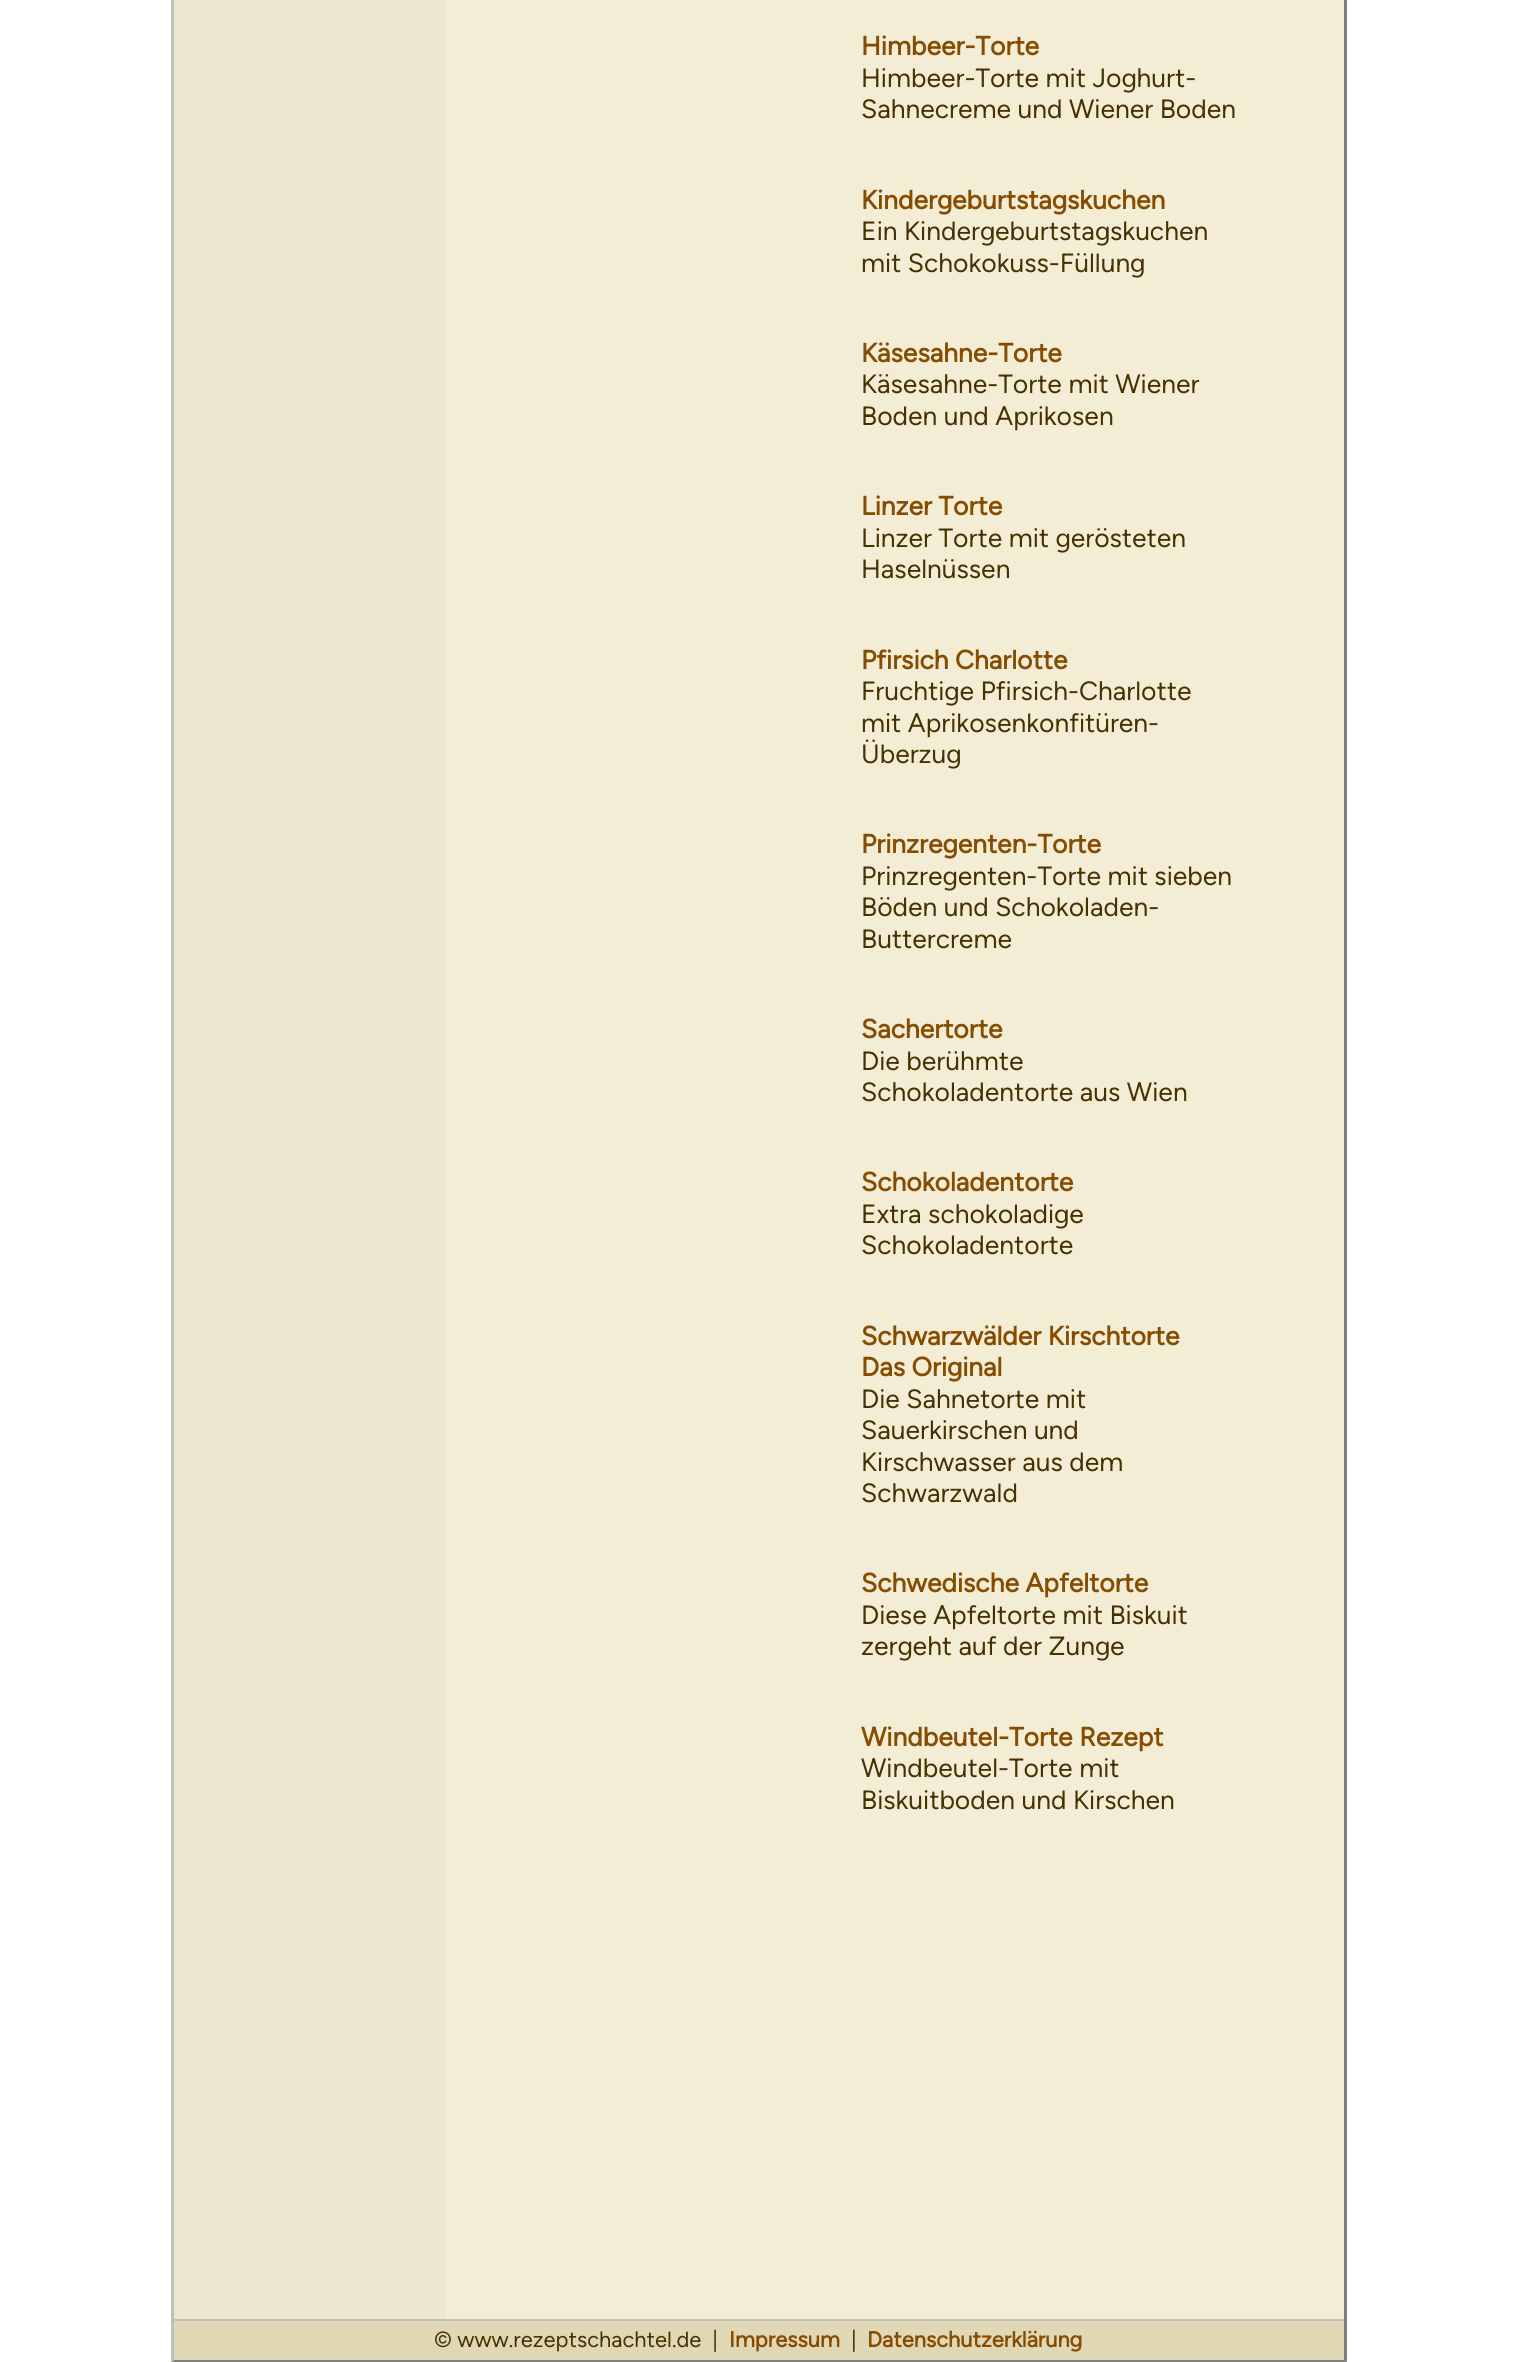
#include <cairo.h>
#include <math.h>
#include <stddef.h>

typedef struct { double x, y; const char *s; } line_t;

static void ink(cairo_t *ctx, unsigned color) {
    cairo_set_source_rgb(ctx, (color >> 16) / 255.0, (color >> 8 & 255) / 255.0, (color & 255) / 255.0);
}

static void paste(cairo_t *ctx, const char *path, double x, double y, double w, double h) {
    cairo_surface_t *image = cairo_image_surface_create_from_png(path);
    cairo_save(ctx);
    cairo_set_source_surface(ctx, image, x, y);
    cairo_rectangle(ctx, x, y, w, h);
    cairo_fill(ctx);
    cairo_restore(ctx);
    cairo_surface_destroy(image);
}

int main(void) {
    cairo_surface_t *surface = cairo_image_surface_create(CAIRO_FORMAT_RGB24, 1516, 2362);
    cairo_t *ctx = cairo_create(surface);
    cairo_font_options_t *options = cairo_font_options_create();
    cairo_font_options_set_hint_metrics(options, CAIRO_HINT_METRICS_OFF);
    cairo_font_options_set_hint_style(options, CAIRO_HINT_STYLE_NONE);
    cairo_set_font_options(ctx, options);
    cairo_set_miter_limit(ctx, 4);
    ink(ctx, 0xFFFFFF);
    cairo_paint(ctx);
    ink(ctx, 0xF3EDD5);
    cairo_rectangle(ctx, 171, 0, 1176, 2362);
    cairo_fill(ctx);
    paste(ctx, "media/1.png", 174, 0, 272, 2319);
    ink(ctx, 0x808080);
    cairo_new_path(ctx);
    cairo_move_to(ctx, 1347, -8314);
    cairo_line_to(ctx, 1347, 2362);
    cairo_line_to(ctx, 1344, 2360);
    cairo_line_to(ctx, 1344, -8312);
    cairo_close_path(ctx);
    cairo_fill(ctx);
    cairo_new_path(ctx);
    cairo_move_to(ctx, 1347, 2362);
    cairo_line_to(ctx, 171, 2362);
    cairo_line_to(ctx, 174, 2360);
    cairo_line_to(ctx, 1344, 2360);
    cairo_close_path(ctx);
    cairo_fill(ctx);
    ink(ctx, 0xC0C0C0);
    cairo_new_path(ctx);
    cairo_move_to(ctx, 171, 2362);
    cairo_line_to(ctx, 171, -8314);
    cairo_line_to(ctx, 174, -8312);
    cairo_line_to(ctx, 174, 2360);
    cairo_close_path(ctx);
    cairo_fill(ctx);
    cairo_select_font_face(ctx, "Figtree", CAIRO_FONT_SLANT_NORMAL, CAIRO_FONT_WEIGHT_BOLD);
    cairo_set_font_size(ctx, 26.4);
    ink(ctx, 0x864C01);
    cairo_move_to(ctx, 861, 55);
    cairo_show_text(ctx, "Himbeer-Torte");
    cairo_select_font_face(ctx, "Figtree Light", CAIRO_FONT_SLANT_NORMAL, CAIRO_FONT_WEIGHT_NORMAL);
    ink(ctx, 0x463100);
    cairo_move_to(ctx, 861, 87);
    cairo_show_text(ctx, "Himbeer-Torte mit Joghurt-");
    cairo_move_to(ctx, 861, 118);
    cairo_show_text(ctx, "Sahnecreme und Wiener Boden");
    cairo_select_font_face(ctx, "Figtree", CAIRO_FONT_SLANT_NORMAL, CAIRO_FONT_WEIGHT_BOLD);
    ink(ctx, 0x864C01);
    cairo_move_to(ctx, 861, 209);
    cairo_show_text(ctx, "Kindergeburtstagskuchen");
    cairo_select_font_face(ctx, "Figtree Light", CAIRO_FONT_SLANT_NORMAL, CAIRO_FONT_WEIGHT_NORMAL);
    ink(ctx, 0x463100);
    cairo_move_to(ctx, 861, 240);
    cairo_show_text(ctx, "Ein Kindergeburtstagskuchen");
    cairo_move_to(ctx, 861, 272);
    cairo_show_text(ctx, "mit Schokokuss-Füllung");
    cairo_select_font_face(ctx, "Figtree", CAIRO_FONT_SLANT_NORMAL, CAIRO_FONT_WEIGHT_BOLD);
    ink(ctx, 0x864C01);
    cairo_move_to(ctx, 861, 362);
    cairo_show_text(ctx, "Käsesahne-Torte");
    cairo_select_font_face(ctx, "Figtree Light", CAIRO_FONT_SLANT_NORMAL, CAIRO_FONT_WEIGHT_NORMAL);
    ink(ctx, 0x463100);
    cairo_move_to(ctx, 861, 393);
    cairo_show_text(ctx, "Käsesahne-Torte mit Wiener");
    cairo_move_to(ctx, 861, 425);
    cairo_show_text(ctx, "Boden und Aprikosen");
    cairo_select_font_face(ctx, "Figtree", CAIRO_FONT_SLANT_NORMAL, CAIRO_FONT_WEIGHT_BOLD);
    ink(ctx, 0x864C01);
    cairo_move_to(ctx, 861, 515);
    cairo_show_text(ctx, "Linzer Torte");
    cairo_select_font_face(ctx, "Figtree Light", CAIRO_FONT_SLANT_NORMAL, CAIRO_FONT_WEIGHT_NORMAL);
    ink(ctx, 0x463100);
    cairo_move_to(ctx, 861, 547);
    cairo_show_text(ctx, "Linzer Torte mit gerösteten");
    cairo_move_to(ctx, 861, 578);
    cairo_show_text(ctx, "Haselnüssen");
    cairo_select_font_face(ctx, "Figtree", CAIRO_FONT_SLANT_NORMAL, CAIRO_FONT_WEIGHT_BOLD);
    ink(ctx, 0x864C01);
    cairo_move_to(ctx, 861, 669);
    cairo_show_text(ctx, "Pfirsich Charlotte");
    cairo_select_font_face(ctx, "Figtree Light", CAIRO_FONT_SLANT_NORMAL, CAIRO_FONT_WEIGHT_NORMAL);
    ink(ctx, 0x463100);
    {
        static const line_t items[] = {
            {861, 700, "Fruchtige Pfirsich-Charlotte"},
            {861, 732, "mit Aprikosenkonfitüren-"},
            {861, 763, "Überzug"},
        };
        for (size_t i = 0; i < sizeof items / sizeof *items; i++) {
            cairo_move_to(ctx, items[i].x, items[i].y);
            cairo_show_text(ctx, items[i].s);
        }
    }
    cairo_select_font_face(ctx, "Figtree", CAIRO_FONT_SLANT_NORMAL, CAIRO_FONT_WEIGHT_BOLD);
    ink(ctx, 0x864C01);
    cairo_move_to(ctx, 861, 853);
    cairo_show_text(ctx, "Prinzregenten-Torte");
    cairo_select_font_face(ctx, "Figtree Light", CAIRO_FONT_SLANT_NORMAL, CAIRO_FONT_WEIGHT_NORMAL);
    ink(ctx, 0x463100);
    {
        static const line_t items[] = {
            {861, 885, "Prinzregenten-Torte mit sieben"},
            {861, 916, "Böden und Schokoladen-"},
            {861, 948, "Buttercreme"},
        };
        for (size_t i = 0; i < sizeof items / sizeof *items; i++) {
            cairo_move_to(ctx, items[i].x, items[i].y);
            cairo_show_text(ctx, items[i].s);
        }
    }
    cairo_select_font_face(ctx, "Figtree", CAIRO_FONT_SLANT_NORMAL, CAIRO_FONT_WEIGHT_BOLD);
    ink(ctx, 0x864C01);
    cairo_move_to(ctx, 861, 1038);
    cairo_show_text(ctx, "Sachertorte");
    cairo_select_font_face(ctx, "Figtree Light", CAIRO_FONT_SLANT_NORMAL, CAIRO_FONT_WEIGHT_NORMAL);
    ink(ctx, 0x463100);
    cairo_move_to(ctx, 861, 1070);
    cairo_show_text(ctx, "Die berühmte");
    cairo_move_to(ctx, 861, 1101);
    cairo_show_text(ctx, "Schokoladentorte aus Wien");
    cairo_select_font_face(ctx, "Figtree", CAIRO_FONT_SLANT_NORMAL, CAIRO_FONT_WEIGHT_BOLD);
    ink(ctx, 0x864C01);
    cairo_move_to(ctx, 861, 1191);
    cairo_show_text(ctx, "Schokoladentorte");
    cairo_select_font_face(ctx, "Figtree Light", CAIRO_FONT_SLANT_NORMAL, CAIRO_FONT_WEIGHT_NORMAL);
    ink(ctx, 0x463100);
    cairo_move_to(ctx, 861, 1223);
    cairo_show_text(ctx, "Extra schokoladige");
    cairo_move_to(ctx, 861, 1254);
    cairo_show_text(ctx, "Schokoladentorte");
    cairo_select_font_face(ctx, "Figtree", CAIRO_FONT_SLANT_NORMAL, CAIRO_FONT_WEIGHT_BOLD);
    ink(ctx, 0x864C01);
    cairo_move_to(ctx, 861, 1345);
    cairo_show_text(ctx, "Schwarzwälder Kirschtorte");
    cairo_move_to(ctx, 861, 1376);
    cairo_show_text(ctx, "Das Original");
    cairo_select_font_face(ctx, "Figtree Light", CAIRO_FONT_SLANT_NORMAL, CAIRO_FONT_WEIGHT_NORMAL);
    ink(ctx, 0x463100);
    {
        static const line_t items[] = {
            {861, 1408, "Die Sahnetorte mit"},
            {861, 1439, "Sauerkirschen und"},
            {861, 1471, "Kirschwasser aus dem"},
            {861, 1502, "Schwarzwald"},
        };
        for (size_t i = 0; i < sizeof items / sizeof *items; i++) {
            cairo_move_to(ctx, items[i].x, items[i].y);
            cairo_show_text(ctx, items[i].s);
        }
    }
    cairo_select_font_face(ctx, "Figtree", CAIRO_FONT_SLANT_NORMAL, CAIRO_FONT_WEIGHT_BOLD);
    ink(ctx, 0x864C01);
    cairo_move_to(ctx, 861, 1592);
    cairo_show_text(ctx, "Schwedische Apfeltorte");
    cairo_select_font_face(ctx, "Figtree Light", CAIRO_FONT_SLANT_NORMAL, CAIRO_FONT_WEIGHT_NORMAL);
    ink(ctx, 0x463100);
    cairo_move_to(ctx, 861, 1624);
    cairo_show_text(ctx, "Diese Apfeltorte mit Biskuit");
    cairo_move_to(ctx, 861, 1655);
    cairo_show_text(ctx, "zergeht auf der Zunge");
    cairo_select_font_face(ctx, "Figtree", CAIRO_FONT_SLANT_NORMAL, CAIRO_FONT_WEIGHT_BOLD);
    ink(ctx, 0x864C01);
    cairo_move_to(ctx, 861, 1746);
    cairo_show_text(ctx, "Windbeutel-Torte Rezept");
    cairo_select_font_face(ctx, "Figtree Light", CAIRO_FONT_SLANT_NORMAL, CAIRO_FONT_WEIGHT_NORMAL);
    ink(ctx, 0x463100);
    cairo_move_to(ctx, 861, 1777);
    cairo_show_text(ctx, "Windbeutel-Torte mit");
    cairo_move_to(ctx, 861, 1809);
    cairo_show_text(ctx, "Biskuitboden und Kirschen");
    ink(ctx, 0xE0D7B5);
    cairo_rectangle(ctx, 174, 2321, 1170, 39);
    cairo_fill(ctx);
    ink(ctx, 0xC0C0C0);
    cairo_rectangle(ctx, 174, 2319, 1170, 2);
    cairo_fill(ctx);
    cairo_set_font_size(ctx, 21.9);
    ink(ctx, 0x463100);
    cairo_move_to(ctx, 434, 2347);
    cairo_show_text(ctx, "© www.rezeptschachtel.de  |");
    cairo_select_font_face(ctx, "Figtree", CAIRO_FONT_SLANT_NORMAL, CAIRO_FONT_WEIGHT_BOLD);
    ink(ctx, 0x864C01);
    cairo_move_to(ctx, 729, 2347);
    cairo_show_text(ctx, "Impressum");
    cairo_select_font_face(ctx, "Figtree Light", CAIRO_FONT_SLANT_NORMAL, CAIRO_FONT_WEIGHT_NORMAL);
    ink(ctx, 0x463100);
    cairo_move_to(ctx, 851, 2347);
    cairo_show_text(ctx, "|");
    cairo_select_font_face(ctx, "Figtree", CAIRO_FONT_SLANT_NORMAL, CAIRO_FONT_WEIGHT_BOLD);
    ink(ctx, 0x864C01);
    cairo_move_to(ctx, 867, 2347);
    cairo_show_text(ctx, "Datenschutzerklärung");
    cairo_surface_write_to_png(surface, "image.png");
    cairo_font_options_destroy(options);
    cairo_destroy(ctx);
    cairo_surface_destroy(surface);
    return 0;
}
